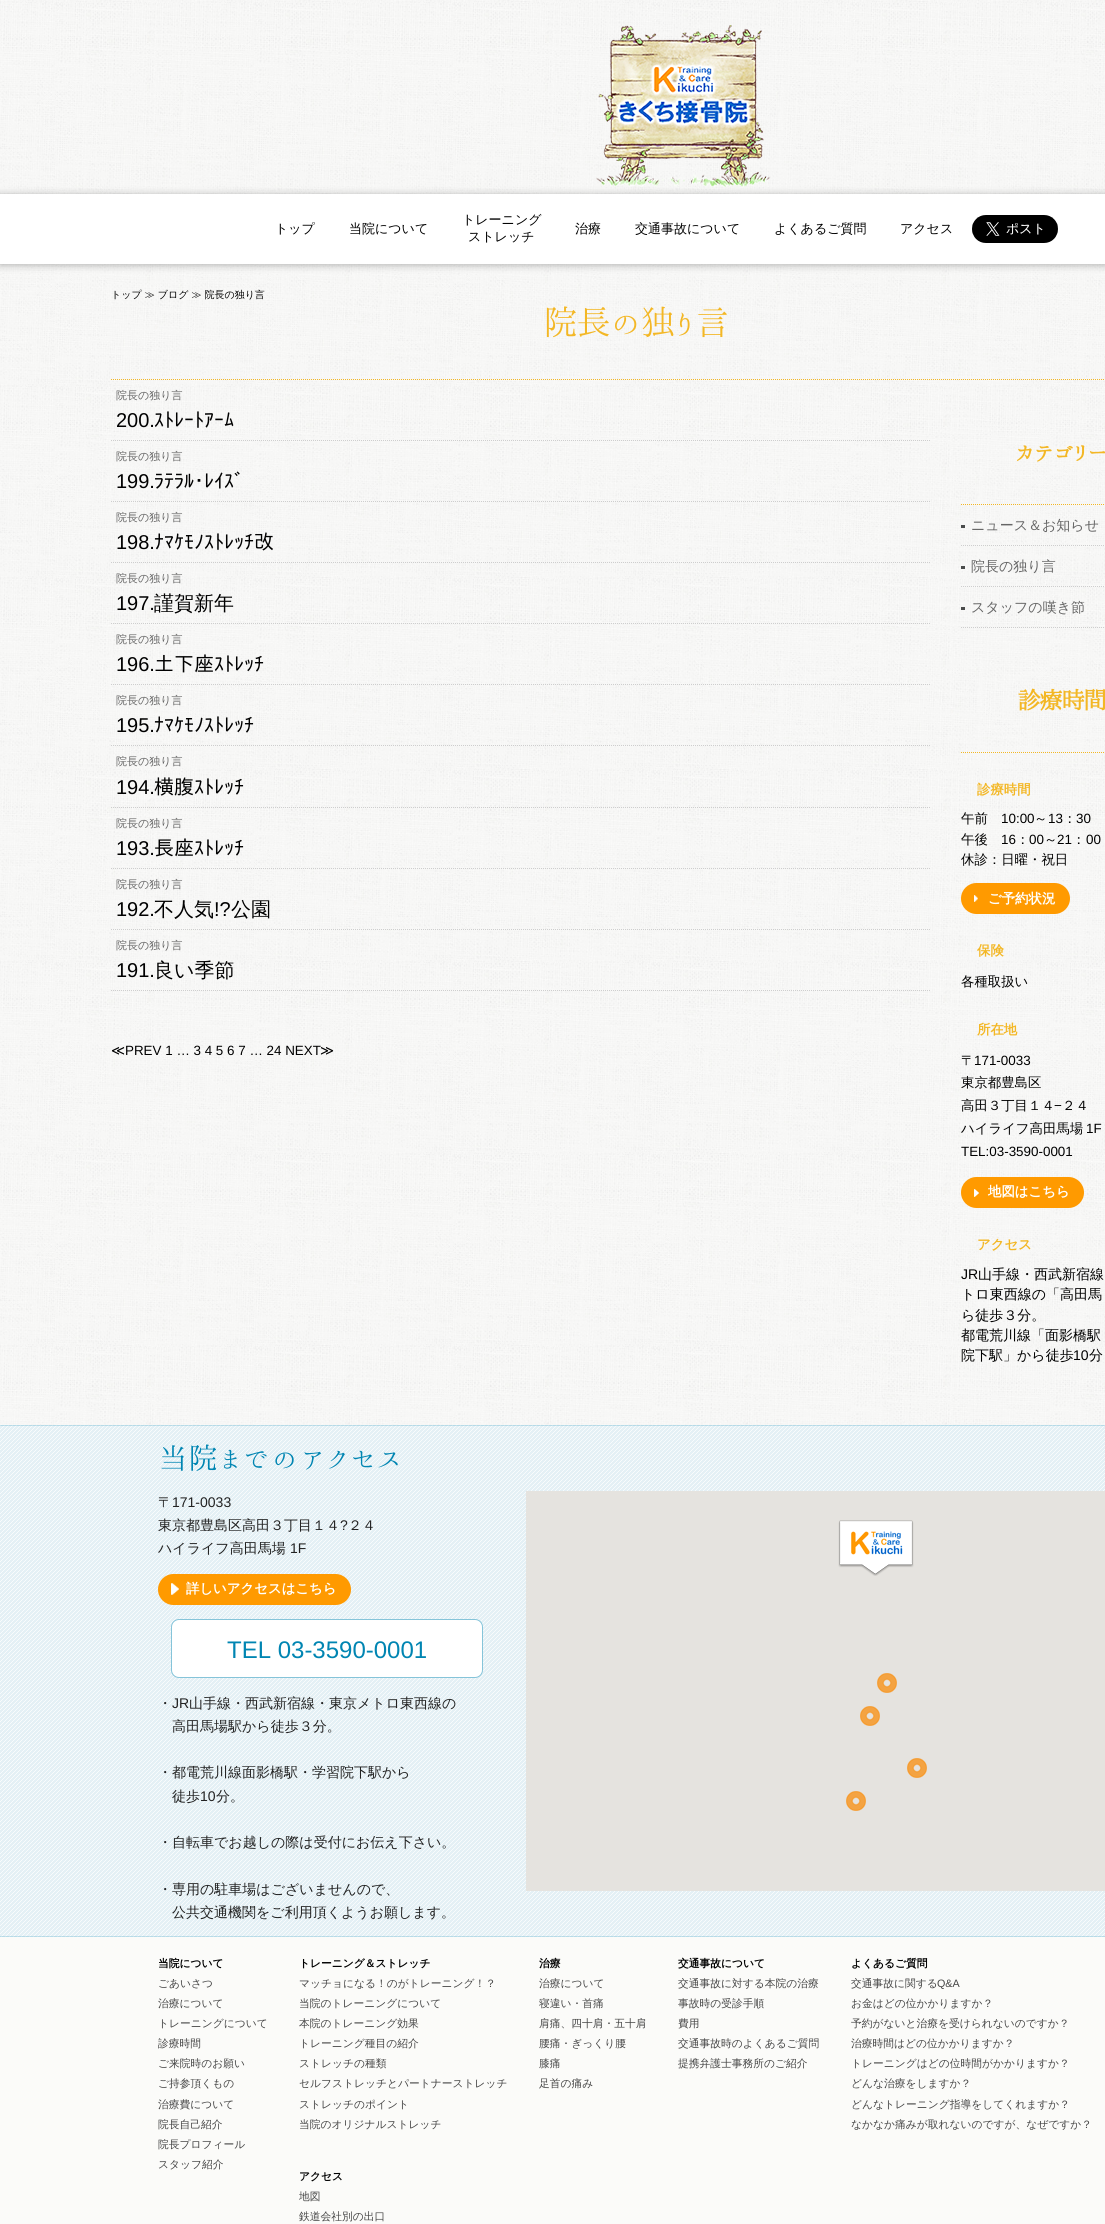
#include <cairo.h>
#include <math.h>
#include <stddef.h>

typedef struct { double x, y; const char *s; } line_t;

static void ink(cairo_t *ctx, unsigned color) {
    cairo_set_source_rgb(ctx, (color >> 16) / 255.0, (color >> 8 & 255) / 255.0, (color & 255) / 255.0);
}

static void write_spaced(cairo_t *ctx, double x, double y, const char *s, double letter, double word) {
    cairo_move_to(ctx, x, y);
    while (*s) {
        char ch[5] = {0};
        int n = 0;
        do ch[n++] = *s++; while ((*s & 0xC0) == 0x80);
        cairo_show_text(ctx, ch);
        cairo_rel_move_to(ctx, letter + word * (*ch == ' '), 0);
    }
}

static void round_path(cairo_t *ctx, double x, double y, double w, double h, double r) {
    cairo_new_sub_path(ctx);
    cairo_arc(ctx, x + w - r, y + h - r, r, 0, M_PI / 2);
    cairo_arc(ctx, x + r, y + h - r, r, M_PI / 2, M_PI);
    cairo_arc(ctx, x + r, y + r, r, M_PI, 1.5 * M_PI);
    cairo_arc(ctx, x + w - r, y + r, r, 1.5 * M_PI, 2 * M_PI);
    cairo_close_path(ctx);
}

static void blur_box(cairo_t *ctx, double x, double y, double w, double h, double r, double blur, double alpha) {
    cairo_push_group_with_content(ctx, CAIRO_CONTENT_ALPHA);
    cairo_set_operator(ctx, CAIRO_OPERATOR_SOURCE);
    for (int i = 15; i >= -15 && fmin(w, h) + blur * i / 3 > 0; i -= 2) {
        double e = blur * i / 6;
        cairo_set_source_rgba(ctx, 0, 0, 0, alpha * erfc((i - 1) / 8.5) / 2);
        round_path(ctx, x - e, y - e, w + 2 * e, h + 2 * e, fmax(0, fmin(r + e + blur * .6, fmin(w, h) / 2 + e)));
        cairo_fill(ctx);
    }
    cairo_pattern_t *soft = cairo_pop_group(ctx);
    cairo_mask(ctx, soft);
    cairo_pattern_destroy(soft);
}

static void paste(cairo_t *ctx, const char *path, double x, double y, double w, double h) {
    cairo_surface_t *image = cairo_image_surface_create_from_png(path);
    cairo_save(ctx);
    cairo_set_source_surface(ctx, image, x, y);
    cairo_rectangle(ctx, x, y, w, h);
    cairo_fill(ctx);
    cairo_restore(ctx);
    cairo_surface_destroy(image);
}

int main(void) {
    cairo_surface_t *surface = cairo_image_surface_create(CAIRO_FORMAT_RGB24, 1105, 2224);
    cairo_t *ctx = cairo_create(surface);
    cairo_font_options_t *options = cairo_font_options_create();
    cairo_font_options_set_hint_metrics(options, CAIRO_HINT_METRICS_OFF);
    cairo_font_options_set_hint_style(options, CAIRO_HINT_STYLE_NONE);
    cairo_set_font_options(ctx, options);
    cairo_set_miter_limit(ctx, 4);
    ink(ctx, 0xFFFFFF);
    cairo_paint(ctx);
    paste(ctx, "media/1.png", 0, 0, 1105, 1425);
    paste(ctx, "media/2.png", 596, 25, 174, 163);
    ink(ctx, 0x000000);
    blur_box(ctx, 0, 195, 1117, 70, 0, 4, 0.3);
    ink(ctx, 0xFFFFFF);
    cairo_rectangle(ctx, 0, 194, 1105, 70);
    cairo_fill(ctx);
    cairo_select_font_face(ctx, "WenQuanYi Zen Hei Medium", CAIRO_FONT_SLANT_NORMAL, CAIRO_FONT_WEIGHT_NORMAL);
    cairo_set_font_size(ctx, 13);
    ink(ctx, 0x000000);
    {
        static const line_t items[] = {
            {275, 233, "トップ"},
            {349, 233, "当院について"},
            {462, 224, "トレーニング"},
            {468, 241, "ストレッチ"},
            {575, 233, "治療"},
            {635, 233, "交通事故について"},
            {774, 233, "よくあるご質問"},
            {900, 233, "アクセス"},
        };
        for (size_t i = 0; i < sizeof items / sizeof *items; i++) {
            cairo_move_to(ctx, items[i].x, items[i].y);
            cairo_show_text(ctx, items[i].s);
        }
    }
    paste(ctx, "media/3.png", 972, 215, 86, 28);
    cairo_set_font_size(ctx, 10);
    cairo_move_to(ctx, 111, 298);
    cairo_show_text(ctx, "トップ ≫ ブログ ≫ 院長の独り言");
    cairo_new_path(ctx);
    cairo_move_to(ctx, 111, 379.5);
    cairo_line_to(ctx, 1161, 379.5);
    ink(ctx, 0xF3B725);
    cairo_set_line_width(ctx, 1);
    cairo_set_dash(ctx, (double[]){1, 1}, 2, 0);
    cairo_stroke(ctx);
    cairo_select_font_face(ctx, "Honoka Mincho", CAIRO_FONT_SLANT_NORMAL, CAIRO_FONT_WEIGHT_NORMAL);
    cairo_set_font_size(ctx, 35);
    write_spaced(ctx, 543, 335, "院長の独り言", -2, 0);
    cairo_new_path(ctx);
    cairo_move_to(ctx, 111, 440.5);
    cairo_line_to(ctx, 931, 440.5);
    ink(ctx, 0xCECECE);
    cairo_stroke(ctx);
    cairo_select_font_face(ctx, "WenQuanYi Zen Hei Medium", CAIRO_FONT_SLANT_NORMAL, CAIRO_FONT_WEIGHT_NORMAL);
    cairo_set_font_size(ctx, 11);
    ink(ctx, 0x666666);
    cairo_move_to(ctx, 116, 399);
    cairo_show_text(ctx, "院長の独り言");
    cairo_select_font_face(ctx, "Liberation Sans", CAIRO_FONT_SLANT_NORMAL, CAIRO_FONT_WEIGHT_NORMAL);
    cairo_set_font_size(ctx, 20);
    ink(ctx, 0x000000);
    cairo_move_to(ctx, 116, 427);
    cairo_show_text(ctx, "200.");
    cairo_select_font_face(ctx, "IPAGothic", CAIRO_FONT_SLANT_NORMAL, CAIRO_FONT_WEIGHT_NORMAL);
    cairo_move_to(ctx, 154, 427);
    cairo_show_text(ctx, "ｽﾄﾚｰﾄｱｰﾑ");
    cairo_new_path(ctx);
    cairo_move_to(ctx, 111, 501.5);
    cairo_line_to(ctx, 931, 501.5);
    ink(ctx, 0xCECECE);
    cairo_stroke(ctx);
    cairo_select_font_face(ctx, "WenQuanYi Zen Hei Medium", CAIRO_FONT_SLANT_NORMAL, CAIRO_FONT_WEIGHT_NORMAL);
    cairo_set_font_size(ctx, 11);
    ink(ctx, 0x666666);
    cairo_move_to(ctx, 116, 460);
    cairo_show_text(ctx, "院長の独り言");
    cairo_select_font_face(ctx, "Liberation Sans", CAIRO_FONT_SLANT_NORMAL, CAIRO_FONT_WEIGHT_NORMAL);
    cairo_set_font_size(ctx, 20);
    ink(ctx, 0x000000);
    cairo_move_to(ctx, 116, 488);
    cairo_show_text(ctx, "199.");
    cairo_select_font_face(ctx, "IPAGothic", CAIRO_FONT_SLANT_NORMAL, CAIRO_FONT_WEIGHT_NORMAL);
    cairo_move_to(ctx, 154, 488);
    cairo_show_text(ctx, "ﾗﾃﾗﾙ･ﾚｲｽﾞ");
    cairo_new_path(ctx);
    cairo_move_to(ctx, 111, 562.5);
    cairo_line_to(ctx, 931, 562.5);
    ink(ctx, 0xCECECE);
    cairo_stroke(ctx);
    cairo_select_font_face(ctx, "WenQuanYi Zen Hei Medium", CAIRO_FONT_SLANT_NORMAL, CAIRO_FONT_WEIGHT_NORMAL);
    cairo_set_font_size(ctx, 11);
    ink(ctx, 0x666666);
    cairo_move_to(ctx, 116, 521);
    cairo_show_text(ctx, "院長の独り言");
    cairo_select_font_face(ctx, "Liberation Sans", CAIRO_FONT_SLANT_NORMAL, CAIRO_FONT_WEIGHT_NORMAL);
    cairo_set_font_size(ctx, 20);
    ink(ctx, 0x000000);
    cairo_move_to(ctx, 116, 549);
    cairo_show_text(ctx, "198.");
    cairo_select_font_face(ctx, "IPAGothic", CAIRO_FONT_SLANT_NORMAL, CAIRO_FONT_WEIGHT_NORMAL);
    cairo_move_to(ctx, 154, 549);
    cairo_show_text(ctx, "ﾅﾏｹﾓﾉｽﾄﾚｯﾁ改");
    cairo_new_path(ctx);
    cairo_move_to(ctx, 111, 623.5);
    cairo_line_to(ctx, 931, 623.5);
    ink(ctx, 0xCECECE);
    cairo_stroke(ctx);
    cairo_select_font_face(ctx, "WenQuanYi Zen Hei Medium", CAIRO_FONT_SLANT_NORMAL, CAIRO_FONT_WEIGHT_NORMAL);
    cairo_set_font_size(ctx, 11);
    ink(ctx, 0x666666);
    cairo_move_to(ctx, 116, 582);
    cairo_show_text(ctx, "院長の独り言");
    cairo_select_font_face(ctx, "Liberation Sans", CAIRO_FONT_SLANT_NORMAL, CAIRO_FONT_WEIGHT_NORMAL);
    cairo_set_font_size(ctx, 20);
    ink(ctx, 0x000000);
    cairo_move_to(ctx, 116, 610);
    cairo_show_text(ctx, "197.");
    cairo_select_font_face(ctx, "WenQuanYi Zen Hei Medium", CAIRO_FONT_SLANT_NORMAL, CAIRO_FONT_WEIGHT_NORMAL);
    cairo_move_to(ctx, 154, 610);
    cairo_show_text(ctx, "謹賀新年");
    cairo_new_path(ctx);
    cairo_move_to(ctx, 111, 684.5);
    cairo_line_to(ctx, 931, 684.5);
    ink(ctx, 0xCECECE);
    cairo_stroke(ctx);
    cairo_set_font_size(ctx, 11);
    ink(ctx, 0x666666);
    cairo_move_to(ctx, 116, 643);
    cairo_show_text(ctx, "院長の独り言");
    cairo_select_font_face(ctx, "Liberation Sans", CAIRO_FONT_SLANT_NORMAL, CAIRO_FONT_WEIGHT_NORMAL);
    cairo_set_font_size(ctx, 20);
    ink(ctx, 0x000000);
    cairo_move_to(ctx, 116, 671);
    cairo_show_text(ctx, "196.");
    cairo_select_font_face(ctx, "IPAGothic", CAIRO_FONT_SLANT_NORMAL, CAIRO_FONT_WEIGHT_NORMAL);
    cairo_move_to(ctx, 154, 671);
    cairo_show_text(ctx, "土下座ｽﾄﾚｯﾁ");
    cairo_new_path(ctx);
    cairo_move_to(ctx, 111, 745.5);
    cairo_line_to(ctx, 931, 745.5);
    ink(ctx, 0xCECECE);
    cairo_stroke(ctx);
    cairo_select_font_face(ctx, "WenQuanYi Zen Hei Medium", CAIRO_FONT_SLANT_NORMAL, CAIRO_FONT_WEIGHT_NORMAL);
    cairo_set_font_size(ctx, 11);
    ink(ctx, 0x666666);
    cairo_move_to(ctx, 116, 704);
    cairo_show_text(ctx, "院長の独り言");
    cairo_select_font_face(ctx, "Liberation Sans", CAIRO_FONT_SLANT_NORMAL, CAIRO_FONT_WEIGHT_NORMAL);
    cairo_set_font_size(ctx, 20);
    ink(ctx, 0x000000);
    cairo_move_to(ctx, 116, 732);
    cairo_show_text(ctx, "195.");
    cairo_select_font_face(ctx, "IPAGothic", CAIRO_FONT_SLANT_NORMAL, CAIRO_FONT_WEIGHT_NORMAL);
    cairo_move_to(ctx, 154, 732);
    cairo_show_text(ctx, "ﾅﾏｹﾓﾉｽﾄﾚｯﾁ");
    cairo_new_path(ctx);
    cairo_move_to(ctx, 111, 807.5);
    cairo_line_to(ctx, 931, 807.5);
    ink(ctx, 0xCECECE);
    cairo_stroke(ctx);
    cairo_select_font_face(ctx, "WenQuanYi Zen Hei Medium", CAIRO_FONT_SLANT_NORMAL, CAIRO_FONT_WEIGHT_NORMAL);
    cairo_set_font_size(ctx, 11);
    ink(ctx, 0x666666);
    cairo_move_to(ctx, 116, 765);
    cairo_show_text(ctx, "院長の独り言");
    cairo_select_font_face(ctx, "Liberation Sans", CAIRO_FONT_SLANT_NORMAL, CAIRO_FONT_WEIGHT_NORMAL);
    cairo_set_font_size(ctx, 20);
    ink(ctx, 0x000000);
    cairo_move_to(ctx, 116, 794);
    cairo_show_text(ctx, "194.");
    cairo_select_font_face(ctx, "IPAGothic", CAIRO_FONT_SLANT_NORMAL, CAIRO_FONT_WEIGHT_NORMAL);
    cairo_move_to(ctx, 154, 794);
    cairo_show_text(ctx, "横腹ｽﾄﾚｯﾁ");
    cairo_new_path(ctx);
    cairo_move_to(ctx, 111, 868.5);
    cairo_line_to(ctx, 931, 868.5);
    ink(ctx, 0xCECECE);
    cairo_stroke(ctx);
    cairo_select_font_face(ctx, "WenQuanYi Zen Hei Medium", CAIRO_FONT_SLANT_NORMAL, CAIRO_FONT_WEIGHT_NORMAL);
    cairo_set_font_size(ctx, 11);
    ink(ctx, 0x666666);
    cairo_move_to(ctx, 116, 827);
    cairo_show_text(ctx, "院長の独り言");
    cairo_select_font_face(ctx, "Liberation Sans", CAIRO_FONT_SLANT_NORMAL, CAIRO_FONT_WEIGHT_NORMAL);
    cairo_set_font_size(ctx, 20);
    ink(ctx, 0x000000);
    cairo_move_to(ctx, 116, 855);
    cairo_show_text(ctx, "193.");
    cairo_select_font_face(ctx, "IPAGothic", CAIRO_FONT_SLANT_NORMAL, CAIRO_FONT_WEIGHT_NORMAL);
    cairo_move_to(ctx, 154, 855);
    cairo_show_text(ctx, "長座ｽﾄﾚｯﾁ");
    cairo_new_path(ctx);
    cairo_move_to(ctx, 111, 929.5);
    cairo_line_to(ctx, 931, 929.5);
    ink(ctx, 0xCECECE);
    cairo_stroke(ctx);
    cairo_select_font_face(ctx, "WenQuanYi Zen Hei Medium", CAIRO_FONT_SLANT_NORMAL, CAIRO_FONT_WEIGHT_NORMAL);
    cairo_set_font_size(ctx, 11);
    ink(ctx, 0x666666);
    cairo_move_to(ctx, 116, 888);
    cairo_show_text(ctx, "院長の独り言");
    cairo_select_font_face(ctx, "Liberation Sans", CAIRO_FONT_SLANT_NORMAL, CAIRO_FONT_WEIGHT_NORMAL);
    cairo_set_font_size(ctx, 20);
    ink(ctx, 0x000000);
    cairo_move_to(ctx, 116, 916);
    cairo_show_text(ctx, "192.");
    cairo_select_font_face(ctx, "WenQuanYi Zen Hei Medium", CAIRO_FONT_SLANT_NORMAL, CAIRO_FONT_WEIGHT_NORMAL);
    cairo_move_to(ctx, 154, 916);
    cairo_show_text(ctx, "不人気");
    cairo_select_font_face(ctx, "Liberation Sans", CAIRO_FONT_SLANT_NORMAL, CAIRO_FONT_WEIGHT_NORMAL);
    cairo_move_to(ctx, 214, 916);
    cairo_show_text(ctx, "!?");
    cairo_select_font_face(ctx, "WenQuanYi Zen Hei Medium", CAIRO_FONT_SLANT_NORMAL, CAIRO_FONT_WEIGHT_NORMAL);
    cairo_move_to(ctx, 231, 916);
    cairo_show_text(ctx, "公園");
    cairo_new_path(ctx);
    cairo_move_to(ctx, 111, 990.5);
    cairo_line_to(ctx, 931, 990.5);
    ink(ctx, 0xCECECE);
    cairo_stroke(ctx);
    cairo_set_font_size(ctx, 11);
    ink(ctx, 0x666666);
    cairo_move_to(ctx, 116, 949);
    cairo_show_text(ctx, "院長の独り言");
    cairo_select_font_face(ctx, "Liberation Sans", CAIRO_FONT_SLANT_NORMAL, CAIRO_FONT_WEIGHT_NORMAL);
    cairo_set_font_size(ctx, 20);
    ink(ctx, 0x000000);
    cairo_move_to(ctx, 116, 977);
    cairo_show_text(ctx, "191.");
    cairo_select_font_face(ctx, "WenQuanYi Zen Hei Medium", CAIRO_FONT_SLANT_NORMAL, CAIRO_FONT_WEIGHT_NORMAL);
    cairo_move_to(ctx, 154, 977);
    cairo_show_text(ctx, "良い季節");
    cairo_select_font_face(ctx, "DejaVu Sans", CAIRO_FONT_SLANT_NORMAL, CAIRO_FONT_WEIGHT_NORMAL);
    cairo_set_font_size(ctx, 13.4);
    cairo_move_to(ctx, 111, 1055);
    cairo_show_text(ctx, "≪");
    cairo_select_font_face(ctx, "Liberation Sans", CAIRO_FONT_SLANT_NORMAL, CAIRO_FONT_WEIGHT_NORMAL);
    cairo_move_to(ctx, 125, 1055);
    cairo_show_text(ctx, "PREV 1 … 3 4 5 6 7 … 24 NEXT");
    cairo_select_font_face(ctx, "DejaVu Sans", CAIRO_FONT_SLANT_NORMAL, CAIRO_FONT_WEIGHT_NORMAL);
    cairo_move_to(ctx, 320, 1055);
    cairo_show_text(ctx, "≫");
    cairo_new_path(ctx);
    cairo_move_to(ctx, 961, 504.5);
    cairo_line_to(ctx, 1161, 504.5);
    ink(ctx, 0xF3B725);
    cairo_stroke(ctx);
    cairo_select_font_face(ctx, "Honoka Mincho", CAIRO_FONT_SLANT_NORMAL, CAIRO_FONT_WEIGHT_BOLD);
    cairo_set_font_size(ctx, 24);
    write_spaced(ctx, 1014, 461, "カテゴリー", -2, 0);
    ink(ctx, 0x4A4C4C);
    cairo_rectangle(ctx, 961, 525, 4, 3);
    cairo_fill(ctx);
    cairo_new_path(ctx);
    cairo_move_to(ctx, 961, 545.5);
    cairo_line_to(ctx, 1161, 545.5);
    ink(ctx, 0xCECECE);
    cairo_stroke(ctx);
    cairo_select_font_face(ctx, "WenQuanYi Zen Hei Medium", CAIRO_FONT_SLANT_NORMAL, CAIRO_FONT_WEIGHT_NORMAL);
    cairo_set_font_size(ctx, 14);
    ink(ctx, 0x666666);
    cairo_move_to(ctx, 971, 530);
    cairo_show_text(ctx, "ニュース＆お知らせ");
    ink(ctx, 0x4A4C4C);
    cairo_rectangle(ctx, 961, 566, 4, 3);
    cairo_fill(ctx);
    cairo_new_path(ctx);
    cairo_move_to(ctx, 961, 586.5);
    cairo_line_to(ctx, 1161, 586.5);
    ink(ctx, 0xCECECE);
    cairo_stroke(ctx);
    ink(ctx, 0x666666);
    cairo_move_to(ctx, 971, 571);
    cairo_show_text(ctx, "院長の独り言");
    ink(ctx, 0x4A4C4C);
    cairo_rectangle(ctx, 961, 607, 4, 3);
    cairo_fill(ctx);
    cairo_new_path(ctx);
    cairo_move_to(ctx, 961, 627.5);
    cairo_line_to(ctx, 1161, 627.5);
    ink(ctx, 0xCECECE);
    cairo_stroke(ctx);
    ink(ctx, 0x666666);
    cairo_move_to(ctx, 971, 612);
    cairo_show_text(ctx, "スタッフの嘆き節");
    cairo_new_path(ctx);
    cairo_move_to(ctx, 961, 752.5);
    cairo_line_to(ctx, 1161, 752.5);
    ink(ctx, 0xF3B725);
    cairo_stroke(ctx);
    cairo_select_font_face(ctx, "Honoka Mincho", CAIRO_FONT_SLANT_NORMAL, CAIRO_FONT_WEIGHT_BOLD);
    cairo_set_font_size(ctx, 24);
    write_spaced(ctx, 1017, 709, "診療時間", -2, 0);
    cairo_select_font_face(ctx, "WenQuanYi Zen Hei", CAIRO_FONT_SLANT_NORMAL, CAIRO_FONT_WEIGHT_BOLD);
    cairo_set_font_size(ctx, 13.4);
    cairo_move_to(ctx, 977, 794);
    cairo_show_text(ctx, "診療時間");
    cairo_select_font_face(ctx, "WenQuanYi Zen Hei Medium", CAIRO_FONT_SLANT_NORMAL, CAIRO_FONT_WEIGHT_NORMAL);
    ink(ctx, 0x000000);
    cairo_move_to(ctx, 961, 823);
    cairo_show_text(ctx, "午前");
    cairo_select_font_face(ctx, "Liberation Sans", CAIRO_FONT_SLANT_NORMAL, CAIRO_FONT_WEIGHT_NORMAL);
    cairo_move_to(ctx, 1001, 823);
    cairo_show_text(ctx, "10:00");
    cairo_select_font_face(ctx, "WenQuanYi Zen Hei Medium", CAIRO_FONT_SLANT_NORMAL, CAIRO_FONT_WEIGHT_NORMAL);
    cairo_move_to(ctx, 1034, 823);
    cairo_show_text(ctx, "～");
    cairo_select_font_face(ctx, "Liberation Sans", CAIRO_FONT_SLANT_NORMAL, CAIRO_FONT_WEIGHT_NORMAL);
    cairo_move_to(ctx, 1048, 823);
    cairo_show_text(ctx, "13");
    cairo_select_font_face(ctx, "WenQuanYi Zen Hei Medium", CAIRO_FONT_SLANT_NORMAL, CAIRO_FONT_WEIGHT_NORMAL);
    cairo_move_to(ctx, 1063, 823);
    cairo_show_text(ctx, "：");
    cairo_select_font_face(ctx, "Liberation Sans", CAIRO_FONT_SLANT_NORMAL, CAIRO_FONT_WEIGHT_NORMAL);
    cairo_move_to(ctx, 1076, 823);
    cairo_show_text(ctx, "30");
    cairo_select_font_face(ctx, "WenQuanYi Zen Hei Medium", CAIRO_FONT_SLANT_NORMAL, CAIRO_FONT_WEIGHT_NORMAL);
    cairo_move_to(ctx, 961, 844);
    cairo_show_text(ctx, "午後");
    cairo_select_font_face(ctx, "Liberation Sans", CAIRO_FONT_SLANT_NORMAL, CAIRO_FONT_WEIGHT_NORMAL);
    cairo_move_to(ctx, 1001, 844);
    cairo_show_text(ctx, "16");
    cairo_select_font_face(ctx, "WenQuanYi Zen Hei Medium", CAIRO_FONT_SLANT_NORMAL, CAIRO_FONT_WEIGHT_NORMAL);
    cairo_move_to(ctx, 1016, 844);
    cairo_show_text(ctx, "：");
    cairo_select_font_face(ctx, "Liberation Sans", CAIRO_FONT_SLANT_NORMAL, CAIRO_FONT_WEIGHT_NORMAL);
    cairo_move_to(ctx, 1029, 844);
    cairo_show_text(ctx, "00");
    cairo_select_font_face(ctx, "WenQuanYi Zen Hei Medium", CAIRO_FONT_SLANT_NORMAL, CAIRO_FONT_WEIGHT_NORMAL);
    cairo_move_to(ctx, 1044, 844);
    cairo_show_text(ctx, "～");
    cairo_select_font_face(ctx, "Liberation Sans", CAIRO_FONT_SLANT_NORMAL, CAIRO_FONT_WEIGHT_NORMAL);
    cairo_move_to(ctx, 1057, 844);
    cairo_show_text(ctx, "21");
    cairo_select_font_face(ctx, "WenQuanYi Zen Hei Medium", CAIRO_FONT_SLANT_NORMAL, CAIRO_FONT_WEIGHT_NORMAL);
    cairo_move_to(ctx, 1072, 844);
    cairo_show_text(ctx, "：");
    cairo_select_font_face(ctx, "Liberation Sans", CAIRO_FONT_SLANT_NORMAL, CAIRO_FONT_WEIGHT_NORMAL);
    cairo_move_to(ctx, 1086, 844);
    cairo_show_text(ctx, "00");
    cairo_select_font_face(ctx, "WenQuanYi Zen Hei Medium", CAIRO_FONT_SLANT_NORMAL, CAIRO_FONT_WEIGHT_NORMAL);
    cairo_move_to(ctx, 961, 864);
    cairo_show_text(ctx, "休診：日曜・祝日");
    ink(ctx, 0xFF9A00);
    round_path(ctx, 961, 883, 109, 31, 15.5);
    cairo_fill(ctx);
    paste(ctx, "media/4.png", 974, 895, 4, 7);
    cairo_select_font_face(ctx, "WenQuanYi Zen Hei", CAIRO_FONT_SLANT_NORMAL, CAIRO_FONT_WEIGHT_BOLD);
    ink(ctx, 0xFFFFFF);
    cairo_move_to(ctx, 988, 903);
    cairo_show_text(ctx, "ご予約状況");
    ink(ctx, 0xF3B725);
    cairo_move_to(ctx, 977, 955);
    cairo_show_text(ctx, "保険");
    cairo_select_font_face(ctx, "WenQuanYi Zen Hei Medium", CAIRO_FONT_SLANT_NORMAL, CAIRO_FONT_WEIGHT_NORMAL);
    ink(ctx, 0x000000);
    cairo_move_to(ctx, 961, 986);
    cairo_show_text(ctx, "各種取扱い");
    cairo_select_font_face(ctx, "WenQuanYi Zen Hei", CAIRO_FONT_SLANT_NORMAL, CAIRO_FONT_WEIGHT_BOLD);
    ink(ctx, 0xF3B725);
    cairo_move_to(ctx, 977, 1034);
    cairo_show_text(ctx, "所在地");
    cairo_select_font_face(ctx, "WenQuanYi Zen Hei Medium", CAIRO_FONT_SLANT_NORMAL, CAIRO_FONT_WEIGHT_NORMAL);
    ink(ctx, 0x000000);
    cairo_move_to(ctx, 961, 1065);
    cairo_show_text(ctx, "〒");
    cairo_select_font_face(ctx, "Liberation Sans", CAIRO_FONT_SLANT_NORMAL, CAIRO_FONT_WEIGHT_NORMAL);
    cairo_move_to(ctx, 974, 1065);
    cairo_show_text(ctx, "171-0033");
    cairo_select_font_face(ctx, "WenQuanYi Zen Hei Medium", CAIRO_FONT_SLANT_NORMAL, CAIRO_FONT_WEIGHT_NORMAL);
    cairo_move_to(ctx, 961, 1087);
    cairo_show_text(ctx, "東京都豊島区");
    cairo_move_to(ctx, 961, 1110);
    cairo_show_text(ctx, "高田３丁目１４");
    cairo_select_font_face(ctx, "Liberation Sans", CAIRO_FONT_SLANT_NORMAL, CAIRO_FONT_WEIGHT_NORMAL);
    cairo_move_to(ctx, 1054, 1110);
    cairo_show_text(ctx, "−");
    cairo_select_font_face(ctx, "WenQuanYi Zen Hei Medium", CAIRO_FONT_SLANT_NORMAL, CAIRO_FONT_WEIGHT_NORMAL);
    cairo_move_to(ctx, 1062, 1110);
    cairo_show_text(ctx, "２４");
    cairo_move_to(ctx, 961, 1133);
    cairo_show_text(ctx, "ハイライフ高田馬場");
    cairo_select_font_face(ctx, "Liberation Sans", CAIRO_FONT_SLANT_NORMAL, CAIRO_FONT_WEIGHT_NORMAL);
    cairo_move_to(ctx, 1086, 1133);
    cairo_show_text(ctx, "1F");
    cairo_move_to(ctx, 961, 1156);
    cairo_show_text(ctx, "TEL:03-3590-0001");
    ink(ctx, 0xFF9A00);
    round_path(ctx, 961, 1177, 123, 31, 15.5);
    cairo_fill(ctx);
    paste(ctx, "media/5.png", 974, 1189, 5, 8);
    cairo_select_font_face(ctx, "WenQuanYi Zen Hei", CAIRO_FONT_SLANT_NORMAL, CAIRO_FONT_WEIGHT_BOLD);
    ink(ctx, 0xFFFFFF);
    cairo_move_to(ctx, 988, 1196);
    cairo_show_text(ctx, "地図はこちら");
    ink(ctx, 0xF3B725);
    cairo_move_to(ctx, 977, 1249);
    cairo_show_text(ctx, "アクセス");
    cairo_select_font_face(ctx, "Liberation Sans", CAIRO_FONT_SLANT_NORMAL, CAIRO_FONT_WEIGHT_NORMAL);
    cairo_set_font_size(ctx, 14);
    ink(ctx, 0x000000);
    cairo_move_to(ctx, 961, 1279);
    cairo_show_text(ctx, "JR");
    cairo_select_font_face(ctx, "WenQuanYi Zen Hei Medium", CAIRO_FONT_SLANT_NORMAL, CAIRO_FONT_WEIGHT_NORMAL);
    {
        static const line_t items[] = {
            {978, 1279, "山手線・西武新宿線"},
            {961, 1299, "トロ東西線の「高田馬"},
            {961, 1320, "ら徒歩３分。"},
            {961, 1340, "都電荒川線「面影橋駅"},
            {961, 1360, "院下駅」から徒歩"},
        };
        for (size_t i = 0; i < sizeof items / sizeof *items; i++) {
            cairo_move_to(ctx, items[i].x, items[i].y);
            cairo_show_text(ctx, items[i].s);
        }
    }
    cairo_select_font_face(ctx, "Liberation Sans", CAIRO_FONT_SLANT_NORMAL, CAIRO_FONT_WEIGHT_NORMAL);
    cairo_move_to(ctx, 1073, 1360);
    cairo_show_text(ctx, "10");
    cairo_select_font_face(ctx, "WenQuanYi Zen Hei Medium", CAIRO_FONT_SLANT_NORMAL, CAIRO_FONT_WEIGHT_NORMAL);
    cairo_move_to(ctx, 1089, 1360);
    cairo_show_text(ctx, "分");
    ink(ctx, 0xE4F0F5);
    cairo_rectangle(ctx, 0, 1425, 1105, 512);
    cairo_fill(ctx);
    paste(ctx, "media/6.png", 0, 1425, 1105, 512);
    cairo_set_source_rgba(ctx, 0, 0.522, 0.698, 0.2);
    cairo_rectangle(ctx, 0, 1425, 1105, 1);
    cairo_fill(ctx);
    cairo_rectangle(ctx, 0, 1936, 1105, 1);
    cairo_fill(ctx);
    cairo_select_font_face(ctx, "Honoka Mincho", CAIRO_FONT_SLANT_NORMAL, CAIRO_FONT_WEIGHT_NORMAL);
    cairo_set_font_size(ctx, 30);
    ink(ctx, 0x0085B2);
    cairo_move_to(ctx, 158, 1469);
    cairo_show_text(ctx, "当院までのアクセス");
    cairo_select_font_face(ctx, "WenQuanYi Zen Hei Medium", CAIRO_FONT_SLANT_NORMAL, CAIRO_FONT_WEIGHT_NORMAL);
    cairo_set_font_size(ctx, 14);
    ink(ctx, 0x222222);
    cairo_move_to(ctx, 158, 1507);
    cairo_show_text(ctx, "〒");
    cairo_select_font_face(ctx, "Liberation Sans", CAIRO_FONT_SLANT_NORMAL, CAIRO_FONT_WEIGHT_NORMAL);
    cairo_move_to(ctx, 172, 1507);
    cairo_show_text(ctx, "171-0033");
    cairo_select_font_face(ctx, "WenQuanYi Zen Hei Medium", CAIRO_FONT_SLANT_NORMAL, CAIRO_FONT_WEIGHT_NORMAL);
    cairo_move_to(ctx, 158, 1530);
    cairo_show_text(ctx, "東京都豊島区高田３丁目１４");
    cairo_select_font_face(ctx, "Liberation Sans", CAIRO_FONT_SLANT_NORMAL, CAIRO_FONT_WEIGHT_NORMAL);
    cairo_move_to(ctx, 340, 1530);
    cairo_show_text(ctx, "?");
    cairo_select_font_face(ctx, "WenQuanYi Zen Hei Medium", CAIRO_FONT_SLANT_NORMAL, CAIRO_FONT_WEIGHT_NORMAL);
    cairo_move_to(ctx, 348, 1530);
    cairo_show_text(ctx, "２４");
    cairo_move_to(ctx, 158, 1553);
    cairo_show_text(ctx, "ハイライフ高田馬場");
    cairo_select_font_face(ctx, "Liberation Sans", CAIRO_FONT_SLANT_NORMAL, CAIRO_FONT_WEIGHT_NORMAL);
    cairo_move_to(ctx, 290, 1553);
    cairo_show_text(ctx, "1F");
    ink(ctx, 0xFF9A00);
    round_path(ctx, 158, 1574, 193, 31, 15.5);
    cairo_fill(ctx);
    paste(ctx, "media/7.png", 171, 1583, 8, 12);
    cairo_select_font_face(ctx, "WenQuanYi Zen Hei", CAIRO_FONT_SLANT_NORMAL, CAIRO_FONT_WEIGHT_BOLD);
    cairo_set_font_size(ctx, 13.4);
    ink(ctx, 0xFFFFFF);
    cairo_move_to(ctx, 186, 1593);
    cairo_show_text(ctx, "詳しいアクセスはこちら");
    round_path(ctx, 171.5, 1619.5, 311, 58, 7.5);
    cairo_fill_preserve(ctx);
    ink(ctx, 0x85C4D9);
    cairo_set_dash(ctx, NULL, 0, 0);
    cairo_stroke(ctx);
    cairo_select_font_face(ctx, "Liberation Sans", CAIRO_FONT_SLANT_NORMAL, CAIRO_FONT_WEIGHT_NORMAL);
    cairo_set_font_size(ctx, 24);
    ink(ctx, 0x0085B2);
    cairo_move_to(ctx, 227, 1658);
    cairo_show_text(ctx, "TEL 03-3590-0001");
    cairo_select_font_face(ctx, "WenQuanYi Zen Hei Medium", CAIRO_FONT_SLANT_NORMAL, CAIRO_FONT_WEIGHT_NORMAL);
    cairo_set_font_size(ctx, 14);
    ink(ctx, 0x222222);
    cairo_move_to(ctx, 158, 1708);
    cairo_show_text(ctx, "・");
    cairo_select_font_face(ctx, "Liberation Sans", CAIRO_FONT_SLANT_NORMAL, CAIRO_FONT_WEIGHT_NORMAL);
    cairo_move_to(ctx, 172, 1708);
    cairo_show_text(ctx, "JR");
    cairo_select_font_face(ctx, "WenQuanYi Zen Hei Medium", CAIRO_FONT_SLANT_NORMAL, CAIRO_FONT_WEIGHT_NORMAL);
    {
        static const line_t items[] = {
            {189, 1708, "山手線・西武新宿線・東京メトロ東西線の"},
            {172, 1731, "高田馬場駅から徒歩３分。"},
            {158, 1777, "・都電荒川線面影橋駅・学習院下駅から"},
            {172, 1801, "徒歩"},
        };
        for (size_t i = 0; i < sizeof items / sizeof *items; i++) {
            cairo_move_to(ctx, items[i].x, items[i].y);
            cairo_show_text(ctx, items[i].s);
        }
    }
    cairo_select_font_face(ctx, "Liberation Sans", CAIRO_FONT_SLANT_NORMAL, CAIRO_FONT_WEIGHT_NORMAL);
    cairo_move_to(ctx, 200, 1801);
    cairo_show_text(ctx, "10");
    cairo_select_font_face(ctx, "WenQuanYi Zen Hei Medium", CAIRO_FONT_SLANT_NORMAL, CAIRO_FONT_WEIGHT_NORMAL);
    {
        static const line_t items[] = {
            {216, 1801, "分。"},
            {158, 1847, "・自転車でお越しの際は受付にお伝え下さい。"},
            {158, 1894, "・専用の駐車場はございませんので、"},
            {172, 1917, "公共交通機関をご利用頂くようお願します。"},
        };
        for (size_t i = 0; i < sizeof items / sizeof *items; i++) {
            cairo_move_to(ctx, items[i].x, items[i].y);
            cairo_show_text(ctx, items[i].s);
        }
    }
    ink(ctx, 0xE5E3DF);
    cairo_rectangle(ctx, 526, 1491, 579, 400);
    cairo_fill(ctx);
    paste(ctx, "media/8.png", 838, 1520, 76, 56);
    paste(ctx, "media/9.png", 877, 1673, 20, 20);
    paste(ctx, "media/9.png", 860, 1706, 20, 20);
    paste(ctx, "media/9.png", 907, 1758, 20, 20);
    paste(ctx, "media/9.png", 846, 1791, 20, 20);
    ink(ctx, 0xFBFBF9);
    cairo_rectangle(ctx, 0, 1937, 1105, 287);
    cairo_fill(ctx);
    cairo_select_font_face(ctx, "WenQuanYi Zen Hei", CAIRO_FONT_SLANT_NORMAL, CAIRO_FONT_WEIGHT_BOLD);
    cairo_set_font_size(ctx, 10.75);
    ink(ctx, 0x000000);
    cairo_move_to(ctx, 158, 1967);
    cairo_show_text(ctx, "当院について");
    cairo_select_font_face(ctx, "WenQuanYi Zen Hei Medium", CAIRO_FONT_SLANT_NORMAL, CAIRO_FONT_WEIGHT_NORMAL);
    ink(ctx, 0x444444);
    {
        static const line_t items[] = {
            {158, 1987, "ごあいさつ"},
            {158, 2007, "治療について"},
            {158, 2027, "トレーニングについて"},
            {158, 2047, "診療時間"},
            {158, 2067, "ご来院時のお願い"},
            {158, 2087, "ご持参頂くもの"},
            {158, 2108, "治療費について"},
            {158, 2128, "院長自己紹介"},
            {158, 2148, "院長プロフィール"},
            {158, 2168, "スタッフ紹介"},
        };
        for (size_t i = 0; i < sizeof items / sizeof *items; i++) {
            cairo_move_to(ctx, items[i].x, items[i].y);
            cairo_show_text(ctx, items[i].s);
        }
    }
    cairo_select_font_face(ctx, "WenQuanYi Zen Hei", CAIRO_FONT_SLANT_NORMAL, CAIRO_FONT_WEIGHT_BOLD);
    ink(ctx, 0x000000);
    cairo_move_to(ctx, 299, 1967);
    cairo_show_text(ctx, "トレーニング＆ストレッチ");
    cairo_select_font_face(ctx, "WenQuanYi Zen Hei Medium", CAIRO_FONT_SLANT_NORMAL, CAIRO_FONT_WEIGHT_NORMAL);
    ink(ctx, 0x444444);
    {
        static const line_t items[] = {
            {299, 1987, "マッチョになる！のがトレーニング！？"},
            {299, 2007, "当院のトレーニングについて"},
            {299, 2027, "本院のトレーニング効果"},
            {299, 2047, "トレーニング種目の紹介"},
            {299, 2067, "ストレッチの種類"},
            {299, 2087, "セルフストレッチとパートナーストレッチ"},
            {299, 2108, "ストレッチのポイント"},
            {299, 2128, "当院のオリジナルストレッチ"},
        };
        for (size_t i = 0; i < sizeof items / sizeof *items; i++) {
            cairo_move_to(ctx, items[i].x, items[i].y);
            cairo_show_text(ctx, items[i].s);
        }
    }
    cairo_select_font_face(ctx, "WenQuanYi Zen Hei", CAIRO_FONT_SLANT_NORMAL, CAIRO_FONT_WEIGHT_BOLD);
    ink(ctx, 0x000000);
    cairo_move_to(ctx, 539, 1967);
    cairo_show_text(ctx, "治療");
    cairo_select_font_face(ctx, "WenQuanYi Zen Hei Medium", CAIRO_FONT_SLANT_NORMAL, CAIRO_FONT_WEIGHT_NORMAL);
    ink(ctx, 0x444444);
    {
        static const line_t items[] = {
            {539, 1987, "治療について"},
            {539, 2007, "寝違い・首痛"},
            {539, 2027, "肩痛、四十肩・五十肩"},
            {539, 2047, "腰痛・ぎっくり腰"},
            {539, 2067, "膝痛"},
            {539, 2087, "足首の痛み"},
        };
        for (size_t i = 0; i < sizeof items / sizeof *items; i++) {
            cairo_move_to(ctx, items[i].x, items[i].y);
            cairo_show_text(ctx, items[i].s);
        }
    }
    cairo_select_font_face(ctx, "WenQuanYi Zen Hei", CAIRO_FONT_SLANT_NORMAL, CAIRO_FONT_WEIGHT_BOLD);
    ink(ctx, 0x000000);
    cairo_move_to(ctx, 678, 1967);
    cairo_show_text(ctx, "交通事故について");
    cairo_select_font_face(ctx, "WenQuanYi Zen Hei Medium", CAIRO_FONT_SLANT_NORMAL, CAIRO_FONT_WEIGHT_NORMAL);
    ink(ctx, 0x444444);
    {
        static const line_t items[] = {
            {678, 1987, "交通事故に対する本院の治療"},
            {678, 2007, "事故時の受診手順"},
            {678, 2027, "費用"},
            {678, 2047, "交通事故時のよくあるご質問"},
            {678, 2067, "提携弁護士事務所のご紹介"},
        };
        for (size_t i = 0; i < sizeof items / sizeof *items; i++) {
            cairo_move_to(ctx, items[i].x, items[i].y);
            cairo_show_text(ctx, items[i].s);
        }
    }
    cairo_select_font_face(ctx, "WenQuanYi Zen Hei", CAIRO_FONT_SLANT_NORMAL, CAIRO_FONT_WEIGHT_BOLD);
    ink(ctx, 0x000000);
    cairo_move_to(ctx, 851, 1967);
    cairo_show_text(ctx, "よくあるご質問");
    cairo_select_font_face(ctx, "WenQuanYi Zen Hei Medium", CAIRO_FONT_SLANT_NORMAL, CAIRO_FONT_WEIGHT_NORMAL);
    ink(ctx, 0x444444);
    cairo_move_to(ctx, 851, 1987);
    cairo_show_text(ctx, "交通事故に関する");
    cairo_select_font_face(ctx, "Liberation Sans", CAIRO_FONT_SLANT_NORMAL, CAIRO_FONT_WEIGHT_NORMAL);
    cairo_move_to(ctx, 937, 1987);
    cairo_show_text(ctx, "Q&A");
    cairo_select_font_face(ctx, "WenQuanYi Zen Hei Medium", CAIRO_FONT_SLANT_NORMAL, CAIRO_FONT_WEIGHT_NORMAL);
    {
        static const line_t items[] = {
            {851, 2007, "お金はどの位かかりますか？"},
            {851, 2027, "予約がないと治療を受けられないのですか？"},
            {851, 2047, "治療時間はどの位かかりますか？"},
            {851, 2067, "トレーニングはどの位時間がかかりますか？"},
            {851, 2087, "どんな治療をしますか？"},
            {851, 2108, "どんなトレーニング指導をしてくれますか？"},
            {851, 2128, "なかなか痛みが取れないのですが、なぜですか？"},
        };
        for (size_t i = 0; i < sizeof items / sizeof *items; i++) {
            cairo_move_to(ctx, items[i].x, items[i].y);
            cairo_show_text(ctx, items[i].s);
        }
    }
    cairo_select_font_face(ctx, "WenQuanYi Zen Hei", CAIRO_FONT_SLANT_NORMAL, CAIRO_FONT_WEIGHT_BOLD);
    ink(ctx, 0x000000);
    cairo_move_to(ctx, 299, 2180);
    cairo_show_text(ctx, "アクセス");
    cairo_select_font_face(ctx, "WenQuanYi Zen Hei Medium", CAIRO_FONT_SLANT_NORMAL, CAIRO_FONT_WEIGHT_NORMAL);
    ink(ctx, 0x444444);
    cairo_move_to(ctx, 299, 2200);
    cairo_show_text(ctx, "地図");
    cairo_move_to(ctx, 299, 2220);
    cairo_show_text(ctx, "鉄道会社別の出口");
    cairo_surface_write_to_png(surface, "image.png");
    cairo_font_options_destroy(options);
    cairo_destroy(ctx);
    cairo_surface_destroy(surface);
    return 0;
}
